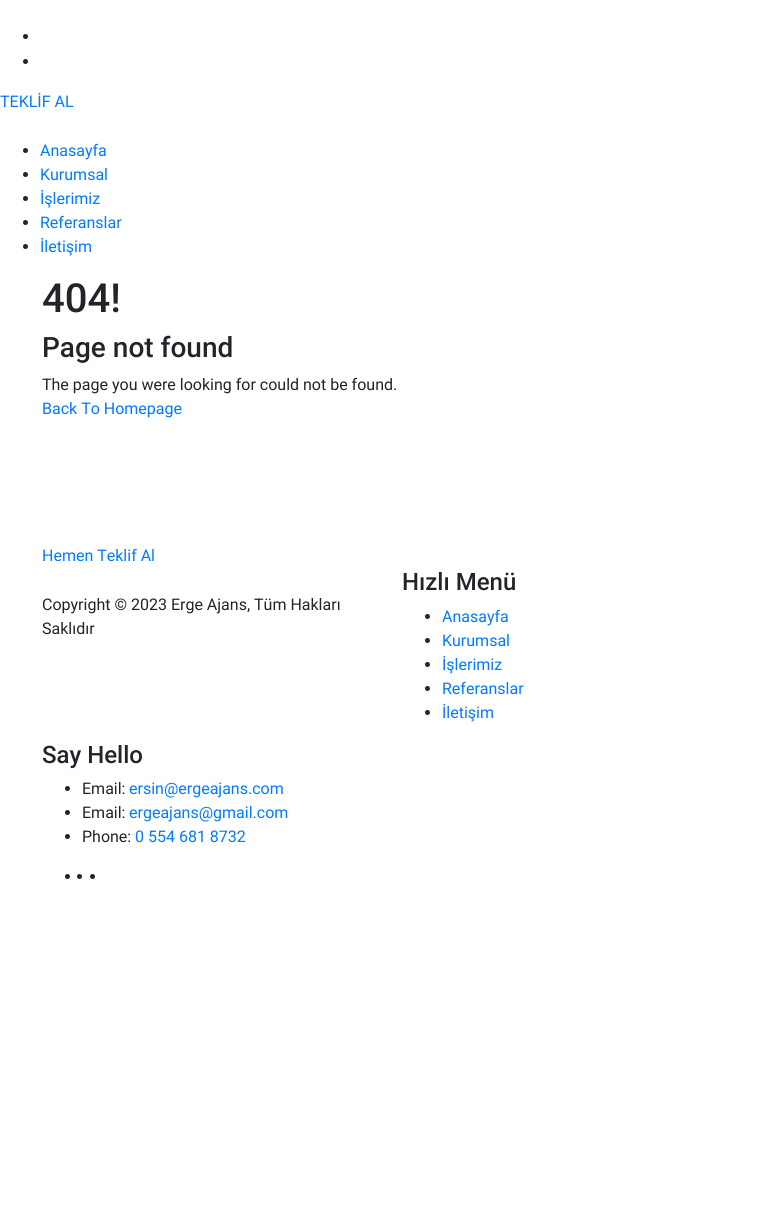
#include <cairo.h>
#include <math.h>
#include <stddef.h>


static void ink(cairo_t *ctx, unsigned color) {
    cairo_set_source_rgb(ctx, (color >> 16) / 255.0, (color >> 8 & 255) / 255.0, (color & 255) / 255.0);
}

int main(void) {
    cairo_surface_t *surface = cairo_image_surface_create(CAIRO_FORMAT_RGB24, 774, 1206);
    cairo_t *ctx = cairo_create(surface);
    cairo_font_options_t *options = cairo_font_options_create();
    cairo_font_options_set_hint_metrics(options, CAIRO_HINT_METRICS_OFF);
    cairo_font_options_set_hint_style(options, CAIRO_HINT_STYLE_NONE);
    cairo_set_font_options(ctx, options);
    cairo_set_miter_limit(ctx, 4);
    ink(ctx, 0xFFFFFF);
    cairo_paint(ctx);
    ink(ctx, 0x212529);
    cairo_arc(ctx, 25.5, 36.5, 2.5, 0, 2 * M_PI);
    cairo_fill(ctx);
    cairo_arc(ctx, 25.5, 61.5, 2.5, 0, 2 * M_PI);
    cairo_fill(ctx);
    cairo_select_font_face(ctx, "Roboto", CAIRO_FONT_SLANT_NORMAL, CAIRO_FONT_WEIGHT_NORMAL);
    cairo_set_font_size(ctx, 16);
    ink(ctx, 0x007BFF);
    cairo_move_to(ctx, 0, 107);
    cairo_show_text(ctx, "TEKLİF AL");
    ink(ctx, 0x212529);
    cairo_new_path(ctx);
    cairo_arc(ctx, 25.5, 150.5, 2.5, 0, 2 * M_PI);
    cairo_fill(ctx);
    ink(ctx, 0x007BFF);
    cairo_move_to(ctx, 40, 156);
    cairo_show_text(ctx, "Anasayfa");
    ink(ctx, 0x212529);
    cairo_new_path(ctx);
    cairo_arc(ctx, 25.5, 174.5, 2.5, 0, 2 * M_PI);
    cairo_fill(ctx);
    ink(ctx, 0x007BFF);
    cairo_move_to(ctx, 40, 180);
    cairo_show_text(ctx, "Kurumsal");
    ink(ctx, 0x212529);
    cairo_new_path(ctx);
    cairo_arc(ctx, 25.5, 198.5, 2.5, 0, 2 * M_PI);
    cairo_fill(ctx);
    ink(ctx, 0x007BFF);
    cairo_move_to(ctx, 40, 204);
    cairo_show_text(ctx, "İşlerimiz");
    ink(ctx, 0x212529);
    cairo_new_path(ctx);
    cairo_arc(ctx, 25.5, 222.5, 2.5, 0, 2 * M_PI);
    cairo_fill(ctx);
    ink(ctx, 0x007BFF);
    cairo_move_to(ctx, 40, 228);
    cairo_show_text(ctx, "Referanslar");
    ink(ctx, 0x212529);
    cairo_new_path(ctx);
    cairo_arc(ctx, 25.5, 246.5, 2.5, 0, 2 * M_PI);
    cairo_fill(ctx);
    ink(ctx, 0x007BFF);
    cairo_move_to(ctx, 40, 252);
    cairo_show_text(ctx, "İletişim");
    cairo_select_font_face(ctx, "Roboto Medium", CAIRO_FONT_SLANT_NORMAL, CAIRO_FONT_WEIGHT_NORMAL);
    cairo_set_font_size(ctx, 40);
    ink(ctx, 0x212529);
    cairo_move_to(ctx, 42, 312);
    cairo_show_text(ctx, "404!");
    cairo_set_font_size(ctx, 28);
    cairo_move_to(ctx, 42, 357);
    cairo_show_text(ctx, "Page not found");
    cairo_select_font_face(ctx, "Roboto", CAIRO_FONT_SLANT_NORMAL, CAIRO_FONT_WEIGHT_NORMAL);
    cairo_set_font_size(ctx, 16);
    cairo_move_to(ctx, 42, 390);
    cairo_show_text(ctx, "The page you were looking for could not be found.");
    ink(ctx, 0x007BFF);
    cairo_move_to(ctx, 42, 414);
    cairo_show_text(ctx, "Back To Homepage");
    cairo_move_to(ctx, 42, 561);
    cairo_show_text(ctx, "Hemen Teklif Al");
    ink(ctx, 0x212529);
    cairo_move_to(ctx, 42, 610);
    cairo_show_text(ctx, "Copyright © 2023 Erge Ajans, Tüm Hakları");
    cairo_move_to(ctx, 42, 634);
    cairo_show_text(ctx, "Saklıdır");
    cairo_select_font_face(ctx, "Roboto Medium", CAIRO_FONT_SLANT_NORMAL, CAIRO_FONT_WEIGHT_NORMAL);
    cairo_set_font_size(ctx, 24);
    cairo_move_to(ctx, 402, 590);
    cairo_show_text(ctx, "Hızlı Menü");
    cairo_new_path(ctx);
    cairo_arc(ctx, 427.5, 616.5, 2.5, 0, 2 * M_PI);
    cairo_fill(ctx);
    cairo_select_font_face(ctx, "Roboto", CAIRO_FONT_SLANT_NORMAL, CAIRO_FONT_WEIGHT_NORMAL);
    cairo_set_font_size(ctx, 16);
    ink(ctx, 0x007BFF);
    cairo_move_to(ctx, 442, 622);
    cairo_show_text(ctx, "Anasayfa");
    ink(ctx, 0x212529);
    cairo_new_path(ctx);
    cairo_arc(ctx, 427.5, 640.5, 2.5, 0, 2 * M_PI);
    cairo_fill(ctx);
    ink(ctx, 0x007BFF);
    cairo_move_to(ctx, 442, 646);
    cairo_show_text(ctx, "Kurumsal");
    ink(ctx, 0x212529);
    cairo_new_path(ctx);
    cairo_arc(ctx, 427.5, 664.5, 2.5, 0, 2 * M_PI);
    cairo_fill(ctx);
    ink(ctx, 0x007BFF);
    cairo_move_to(ctx, 442, 670);
    cairo_show_text(ctx, "İşlerimiz");
    ink(ctx, 0x212529);
    cairo_new_path(ctx);
    cairo_arc(ctx, 427.5, 688.5, 2.5, 0, 2 * M_PI);
    cairo_fill(ctx);
    ink(ctx, 0x007BFF);
    cairo_move_to(ctx, 442, 694);
    cairo_show_text(ctx, "Referanslar");
    ink(ctx, 0x212529);
    cairo_new_path(ctx);
    cairo_arc(ctx, 427.5, 712.5, 2.5, 0, 2 * M_PI);
    cairo_fill(ctx);
    ink(ctx, 0x007BFF);
    cairo_move_to(ctx, 442, 718);
    cairo_show_text(ctx, "İletişim");
    cairo_select_font_face(ctx, "Roboto Medium", CAIRO_FONT_SLANT_NORMAL, CAIRO_FONT_WEIGHT_NORMAL);
    cairo_set_font_size(ctx, 24);
    ink(ctx, 0x212529);
    cairo_move_to(ctx, 42, 763);
    cairo_show_text(ctx, "Say Hello");
    cairo_new_path(ctx);
    cairo_arc(ctx, 67.5, 788.5, 2.5, 0, 2 * M_PI);
    cairo_fill(ctx);
    cairo_select_font_face(ctx, "Roboto", CAIRO_FONT_SLANT_NORMAL, CAIRO_FONT_WEIGHT_NORMAL);
    cairo_set_font_size(ctx, 16);
    cairo_move_to(ctx, 82, 794);
    cairo_show_text(ctx, "Email:");
    ink(ctx, 0x007BFF);
    cairo_move_to(ctx, 129, 794);
    cairo_show_text(ctx, "ersin@ergeajans.com");
    ink(ctx, 0x212529);
    cairo_new_path(ctx);
    cairo_arc(ctx, 67.5, 812.5, 2.5, 0, 2 * M_PI);
    cairo_fill(ctx);
    cairo_move_to(ctx, 82, 818);
    cairo_show_text(ctx, "Email:");
    ink(ctx, 0x007BFF);
    cairo_move_to(ctx, 129, 818);
    cairo_show_text(ctx, "ergeajans@gmail.com");
    ink(ctx, 0x212529);
    cairo_new_path(ctx);
    cairo_arc(ctx, 67.5, 836.5, 2.5, 0, 2 * M_PI);
    cairo_fill(ctx);
    cairo_move_to(ctx, 82, 842);
    cairo_show_text(ctx, "Phone:");
    ink(ctx, 0x007BFF);
    cairo_move_to(ctx, 135, 842);
    cairo_show_text(ctx, "0 554 681 8732");
    ink(ctx, 0x212529);
    cairo_new_path(ctx);
    cairo_arc(ctx, 67.5, 876.5, 2.5, 0, 2 * M_PI);
    cairo_fill(ctx);
    cairo_arc(ctx, 79.5, 876.5, 2.5, 0, 2 * M_PI);
    cairo_fill(ctx);
    cairo_arc(ctx, 92.5, 876.5, 2.5, 0, 2 * M_PI);
    cairo_fill(ctx);
    cairo_surface_write_to_png(surface, "image.png");
    cairo_font_options_destroy(options);
    cairo_destroy(ctx);
    cairo_surface_destroy(surface);
    return 0;
}
